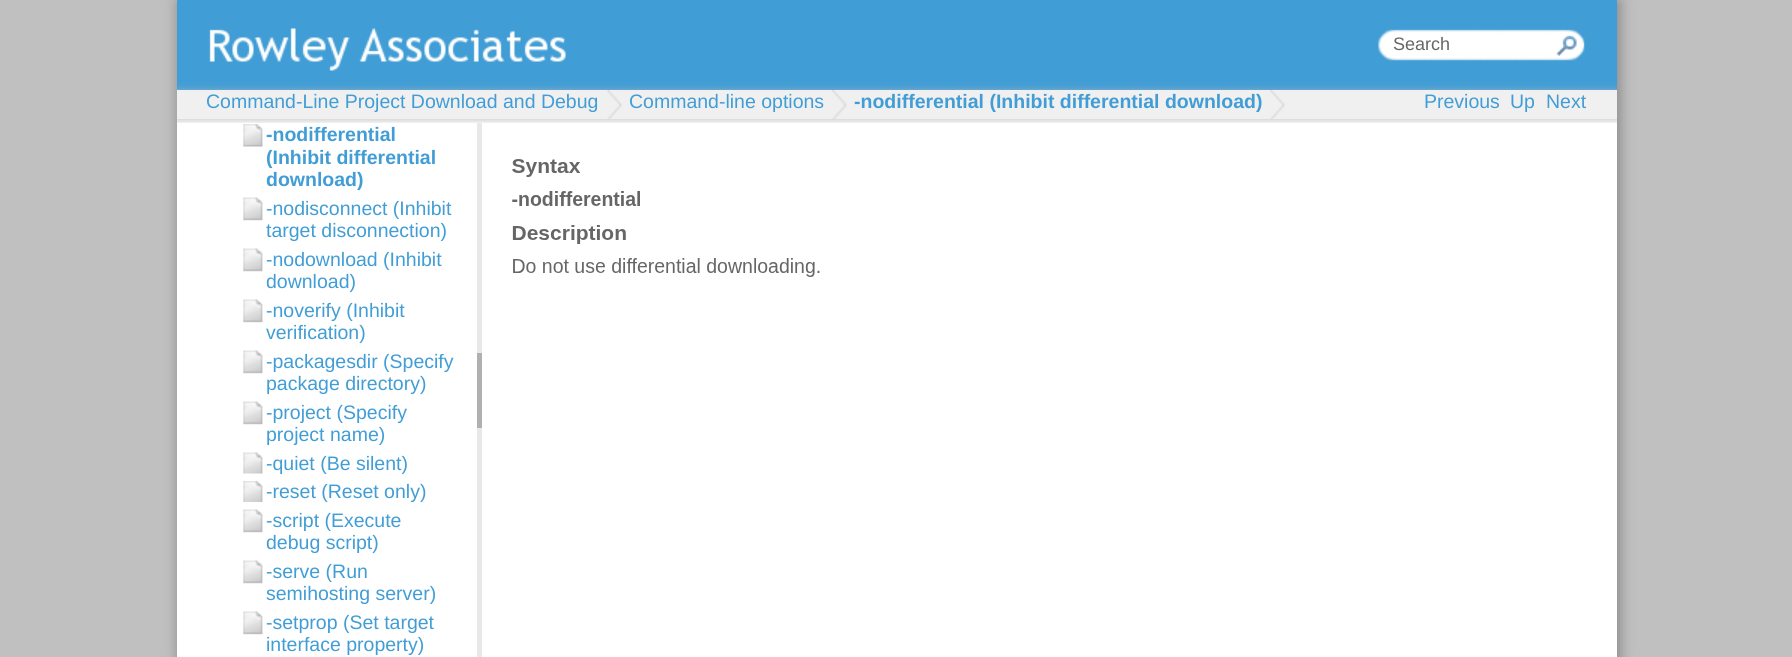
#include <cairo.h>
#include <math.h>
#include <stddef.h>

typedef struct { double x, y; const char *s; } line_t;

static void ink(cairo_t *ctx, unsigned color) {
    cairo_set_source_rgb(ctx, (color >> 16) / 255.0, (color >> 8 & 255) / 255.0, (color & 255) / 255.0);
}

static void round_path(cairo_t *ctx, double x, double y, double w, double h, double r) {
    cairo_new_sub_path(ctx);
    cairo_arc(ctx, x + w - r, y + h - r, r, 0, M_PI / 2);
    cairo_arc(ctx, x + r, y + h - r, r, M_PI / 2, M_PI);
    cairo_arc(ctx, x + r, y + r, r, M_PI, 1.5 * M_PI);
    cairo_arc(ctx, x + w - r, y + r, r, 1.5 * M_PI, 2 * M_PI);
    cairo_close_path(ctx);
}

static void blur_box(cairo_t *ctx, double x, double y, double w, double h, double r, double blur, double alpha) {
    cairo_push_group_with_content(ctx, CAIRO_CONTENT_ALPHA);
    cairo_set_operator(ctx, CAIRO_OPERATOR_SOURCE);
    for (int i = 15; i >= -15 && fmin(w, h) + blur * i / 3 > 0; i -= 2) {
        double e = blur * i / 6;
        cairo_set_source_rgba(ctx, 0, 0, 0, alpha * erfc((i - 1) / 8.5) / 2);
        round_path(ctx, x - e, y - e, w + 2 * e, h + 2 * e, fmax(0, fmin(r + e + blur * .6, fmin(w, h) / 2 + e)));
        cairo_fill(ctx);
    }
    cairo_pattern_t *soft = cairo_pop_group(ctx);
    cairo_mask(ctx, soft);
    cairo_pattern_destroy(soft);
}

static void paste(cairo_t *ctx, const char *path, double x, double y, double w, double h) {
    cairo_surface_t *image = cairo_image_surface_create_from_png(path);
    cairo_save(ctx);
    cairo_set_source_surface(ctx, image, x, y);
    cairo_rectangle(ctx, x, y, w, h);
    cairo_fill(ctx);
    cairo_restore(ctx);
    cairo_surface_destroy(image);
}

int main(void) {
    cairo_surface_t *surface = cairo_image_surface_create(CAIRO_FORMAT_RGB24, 1792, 657);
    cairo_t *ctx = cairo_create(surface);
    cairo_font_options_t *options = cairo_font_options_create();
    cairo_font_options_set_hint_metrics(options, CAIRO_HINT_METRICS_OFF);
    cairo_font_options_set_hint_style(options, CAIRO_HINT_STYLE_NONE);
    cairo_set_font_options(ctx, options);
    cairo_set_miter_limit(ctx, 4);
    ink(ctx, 0xC0C0C0);
    cairo_paint(ctx);
    ink(ctx, 0x808080);
    blur_box(ctx, 179, 2, 1440, 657, 0, 7.5, 1);
    ink(ctx, 0xFFFFFF);
    cairo_rectangle(ctx, 177, 119, 1440, 538);
    cairo_fill(ctx);
    ink(ctx, 0x419DD5);
    cairo_rectangle(ctx, 177, 0, 1440, 90);
    cairo_fill(ctx);
    paste(ctx, "media/1.png", 209, 28, 1376, 43);
    cairo_select_font_face(ctx, "Liberation Sans", CAIRO_FONT_SLANT_NORMAL, CAIRO_FONT_WEIGHT_NORMAL);
    cairo_set_font_size(ctx, 18);
    ink(ctx, 0x666666);
    cairo_move_to(ctx, 1393, 50);
    cairo_show_text(ctx, "Search");
    cairo_save(ctx);
    cairo_rectangle(ctx, 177, 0, 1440, 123);
    cairo_clip(ctx);
    ink(ctx, 0xC0C0C0);
    blur_box(ctx, 177, 92, 1440, 28, 0, 4, 1);
    cairo_restore(ctx);
    ink(ctx, 0xF0F0F0);
    cairo_rectangle(ctx, 177, 90, 1440, 29);
    cairo_fill(ctx);
    paste(ctx, "media/2.png", 607, 90, 15, 29);
    cairo_set_font_size(ctx, 19.5);
    ink(ctx, 0x419DD5);
    cairo_move_to(ctx, 206, 108);
    cairo_show_text(ctx, "Command-Line Project Download and Debug");
    paste(ctx, "media/3.png", 832, 90, 15, 29);
    cairo_move_to(ctx, 629, 108);
    cairo_show_text(ctx, "Command-line options");
    paste(ctx, "media/3.png", 1270, 90, 15, 29);
    cairo_select_font_face(ctx, "Liberation Sans", CAIRO_FONT_SLANT_NORMAL, CAIRO_FONT_WEIGHT_BOLD);
    cairo_move_to(ctx, 854, 108);
    cairo_show_text(ctx, "-nodifferential (Inhibit differential download)");
    cairo_select_font_face(ctx, "Liberation Sans", CAIRO_FONT_SLANT_NORMAL, CAIRO_FONT_WEIGHT_NORMAL);
    {
        static const line_t items[] = {
            {1424, 108, "Previous"},
            {1510, 108, "Up"},
            {1546, 108, "Next"},
        };
        for (size_t i = 0; i < sizeof items / sizeof *items; i++) {
            cairo_move_to(ctx, items[i].x, items[i].y);
            cairo_show_text(ctx, items[i].s);
        }
    }
    paste(ctx, "media/4.png", 243, 124, 20, 23);
    cairo_select_font_face(ctx, "Liberation Sans", CAIRO_FONT_SLANT_NORMAL, CAIRO_FONT_WEIGHT_BOLD);
    {
        static const line_t items[] = {
            {266, 141, "-nodifferential"},
            {266, 164, "(Inhibit differential"},
            {266, 186, "download)"},
        };
        for (size_t i = 0; i < sizeof items / sizeof *items; i++) {
            cairo_move_to(ctx, items[i].x, items[i].y);
            cairo_show_text(ctx, items[i].s);
        }
    }
    paste(ctx, "media/5.png", 243, 197, 20, 24);
    cairo_select_font_face(ctx, "Liberation Sans", CAIRO_FONT_SLANT_NORMAL, CAIRO_FONT_WEIGHT_NORMAL);
    cairo_move_to(ctx, 266, 215);
    cairo_show_text(ctx, "-nodisconnect (Inhibit");
    cairo_move_to(ctx, 266, 237);
    cairo_show_text(ctx, "target disconnection)");
    paste(ctx, "media/5.png", 243, 248, 20, 24);
    cairo_move_to(ctx, 266, 266);
    cairo_show_text(ctx, "-nodownload (Inhibit");
    cairo_move_to(ctx, 266, 288);
    cairo_show_text(ctx, "download)");
    paste(ctx, "media/5.png", 243, 299, 20, 24);
    cairo_move_to(ctx, 266, 317);
    cairo_show_text(ctx, "-noverify (Inhibit");
    cairo_move_to(ctx, 266, 339);
    cairo_show_text(ctx, "verification)");
    paste(ctx, "media/5.png", 243, 350, 20, 24);
    cairo_move_to(ctx, 266, 368);
    cairo_show_text(ctx, "-packagesdir (Specify");
    cairo_move_to(ctx, 266, 390);
    cairo_show_text(ctx, "package directory)");
    paste(ctx, "media/5.png", 243, 401, 20, 24);
    cairo_move_to(ctx, 266, 419);
    cairo_show_text(ctx, "-project (Specify");
    cairo_move_to(ctx, 266, 441);
    cairo_show_text(ctx, "project name)");
    paste(ctx, "media/6.png", 243, 452, 20, 22);
    cairo_move_to(ctx, 266, 470);
    cairo_show_text(ctx, "-quiet (Be silent)");
    paste(ctx, "media/7.png", 243, 481, 20, 21);
    cairo_move_to(ctx, 266, 498);
    cairo_show_text(ctx, "-reset (Reset only)");
    paste(ctx, "media/5.png", 243, 509, 20, 24);
    cairo_move_to(ctx, 266, 527);
    cairo_show_text(ctx, "-script (Execute");
    cairo_move_to(ctx, 266, 549);
    cairo_show_text(ctx, "debug script)");
    paste(ctx, "media/5.png", 243, 560, 20, 24);
    cairo_move_to(ctx, 266, 578);
    cairo_show_text(ctx, "-serve (Run");
    cairo_move_to(ctx, 266, 600);
    cairo_show_text(ctx, "semihosting server)");
    paste(ctx, "media/5.png", 243, 611, 20, 24);
    cairo_move_to(ctx, 266, 629);
    cairo_show_text(ctx, "-setprop (Set target");
    cairo_move_to(ctx, 266, 651);
    cairo_show_text(ctx, "interface property)");
    ink(ctx, 0xE8E8E8);
    cairo_rectangle(ctx, 477, 123, 5, 534);
    cairo_fill(ctx);
    ink(ctx, 0xB0B0B0);
    cairo_rectangle(ctx, 477, 353, 5, 75);
    cairo_fill(ctx);
    paste(ctx, "media/8.png", 512, 159, 308, 118);
    cairo_surface_write_to_png(surface, "image.png");
    cairo_font_options_destroy(options);
    cairo_destroy(ctx);
    cairo_surface_destroy(surface);
    return 0;
}
